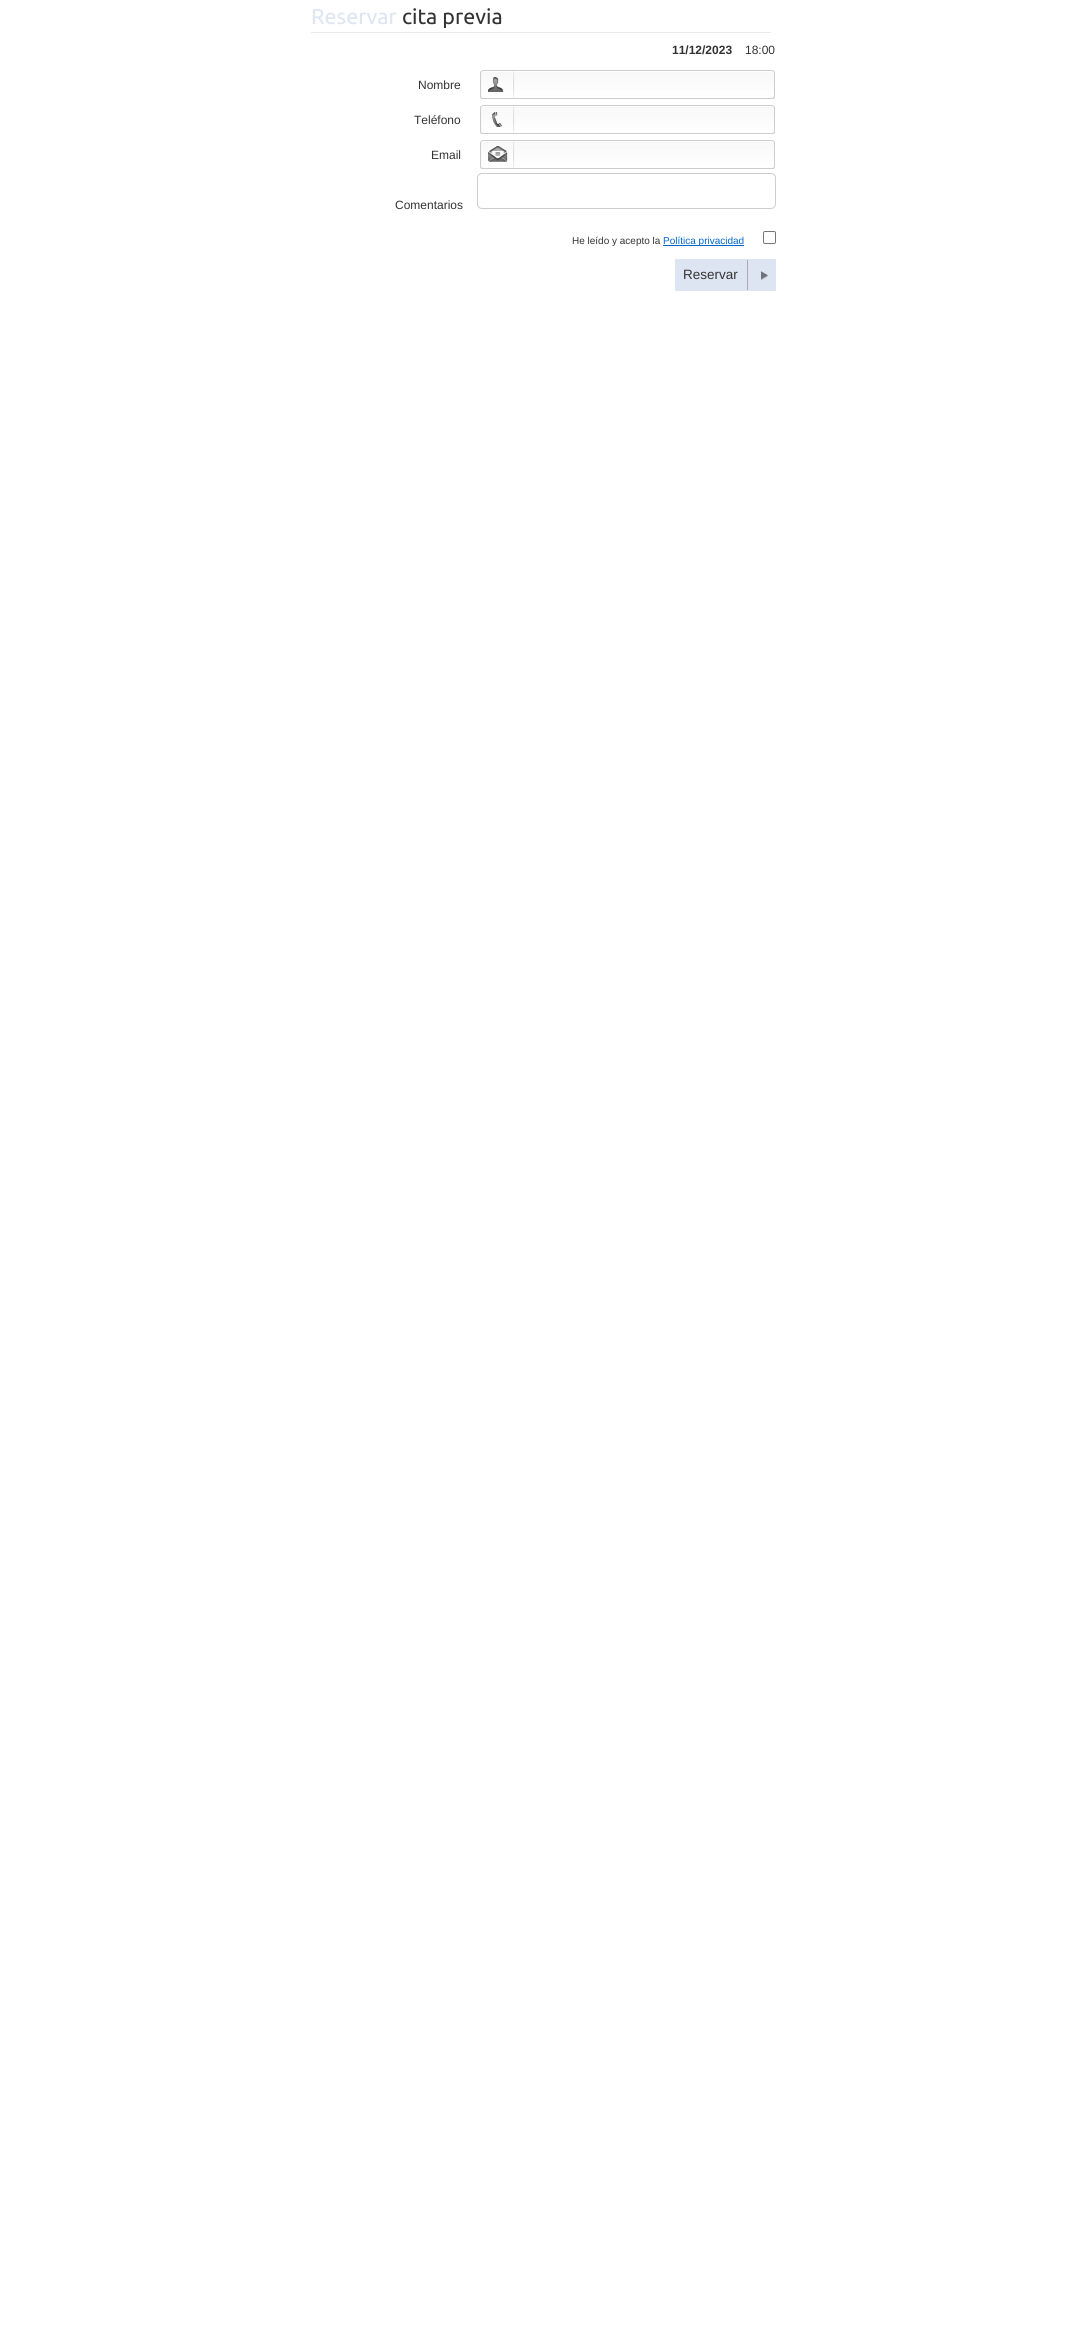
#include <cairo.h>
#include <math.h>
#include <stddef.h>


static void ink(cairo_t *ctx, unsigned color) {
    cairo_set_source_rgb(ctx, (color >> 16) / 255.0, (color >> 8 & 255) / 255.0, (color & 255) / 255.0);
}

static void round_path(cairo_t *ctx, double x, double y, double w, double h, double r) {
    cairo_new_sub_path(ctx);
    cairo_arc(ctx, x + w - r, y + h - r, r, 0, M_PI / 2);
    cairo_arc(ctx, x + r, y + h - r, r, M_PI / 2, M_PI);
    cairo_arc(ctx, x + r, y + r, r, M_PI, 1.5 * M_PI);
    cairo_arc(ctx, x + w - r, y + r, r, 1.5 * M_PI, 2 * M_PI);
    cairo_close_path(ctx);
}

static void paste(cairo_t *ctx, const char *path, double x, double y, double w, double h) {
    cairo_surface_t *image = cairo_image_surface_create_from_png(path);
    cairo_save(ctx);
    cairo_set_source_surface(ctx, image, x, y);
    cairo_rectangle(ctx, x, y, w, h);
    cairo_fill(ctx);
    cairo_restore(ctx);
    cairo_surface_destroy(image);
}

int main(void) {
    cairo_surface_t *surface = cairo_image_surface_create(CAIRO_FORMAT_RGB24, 1081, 2347);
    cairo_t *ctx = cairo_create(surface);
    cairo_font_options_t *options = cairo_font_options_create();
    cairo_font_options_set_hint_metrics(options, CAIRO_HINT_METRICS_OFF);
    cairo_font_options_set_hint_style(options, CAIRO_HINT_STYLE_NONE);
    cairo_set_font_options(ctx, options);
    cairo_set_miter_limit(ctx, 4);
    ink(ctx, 0xFFFFFF);
    cairo_paint(ctx);
    ink(ctx, 0xEBEBEB);
    cairo_rectangle(ctx, 311, 32, 460, 1);
    cairo_fill(ctx);
    cairo_select_font_face(ctx, "Ubuntu", CAIRO_FONT_SLANT_NORMAL, CAIRO_FONT_WEIGHT_NORMAL);
    cairo_set_font_size(ctx, 21.5);
    ink(ctx, 0xDEE5F2);
    cairo_move_to(ctx, 311, 24);
    cairo_show_text(ctx, "Reservar");
    ink(ctx, 0x333333);
    cairo_move_to(ctx, 402, 24);
    cairo_show_text(ctx, "cita previa");
    cairo_select_font_face(ctx, "Liberation Sans", CAIRO_FONT_SLANT_NORMAL, CAIRO_FONT_WEIGHT_BOLD);
    cairo_set_font_size(ctx, 12);
    cairo_move_to(ctx, 672, 54);
    cairo_show_text(ctx, "11/12/2023");
    cairo_select_font_face(ctx, "Liberation Sans", CAIRO_FONT_SLANT_NORMAL, CAIRO_FONT_WEIGHT_NORMAL);
    cairo_move_to(ctx, 745, 54);
    cairo_show_text(ctx, "18:00");
    cairo_move_to(ctx, 418, 89);
    cairo_show_text(ctx, "Nombre");
    paste(ctx, "media/1.png", 480, 70, 295, 29);
    cairo_move_to(ctx, 414, 124);
    cairo_show_text(ctx, "Teléfono");
    paste(ctx, "media/2.png", 480, 105, 295, 29);
    cairo_move_to(ctx, 431, 159);
    cairo_show_text(ctx, "Email");
    paste(ctx, "media/3.png", 480, 140, 295, 29);
    cairo_move_to(ctx, 395, 209);
    cairo_show_text(ctx, "Comentarios");
    round_path(ctx, 477.5, 173.5, 298, 35, 4.5);
    ink(ctx, 0xCDCDCD);
    cairo_set_line_width(ctx, 1);
    cairo_stroke(ctx);
    cairo_set_font_size(ctx, 10);
    ink(ctx, 0x333333);
    cairo_move_to(ctx, 572, 244);
    cairo_show_text(ctx, "He leído y acepto la");
    ink(ctx, 0x0066CC);
    cairo_rectangle(ctx, 663, 245, 81, 1);
    cairo_fill(ctx);
    cairo_move_to(ctx, 663, 244);
    cairo_show_text(ctx, "Política privacidad");
    round_path(ctx, 763.5, 231.5, 12, 12, 1.5);
    ink(ctx, 0x767676);
    cairo_stroke(ctx);
    ink(ctx, 0xDEE5F2);
    cairo_rectangle(ctx, 675, 259, 101, 32);
    cairo_fill(ctx);
    paste(ctx, "media/4.png", 747, 260, 21, 30);
    cairo_set_font_size(ctx, 13.5);
    ink(ctx, 0x333333);
    cairo_move_to(ctx, 683, 279);
    cairo_show_text(ctx, "Reservar");
    cairo_surface_write_to_png(surface, "image.png");
    cairo_font_options_destroy(options);
    cairo_destroy(ctx);
    cairo_surface_destroy(surface);
    return 0;
}
